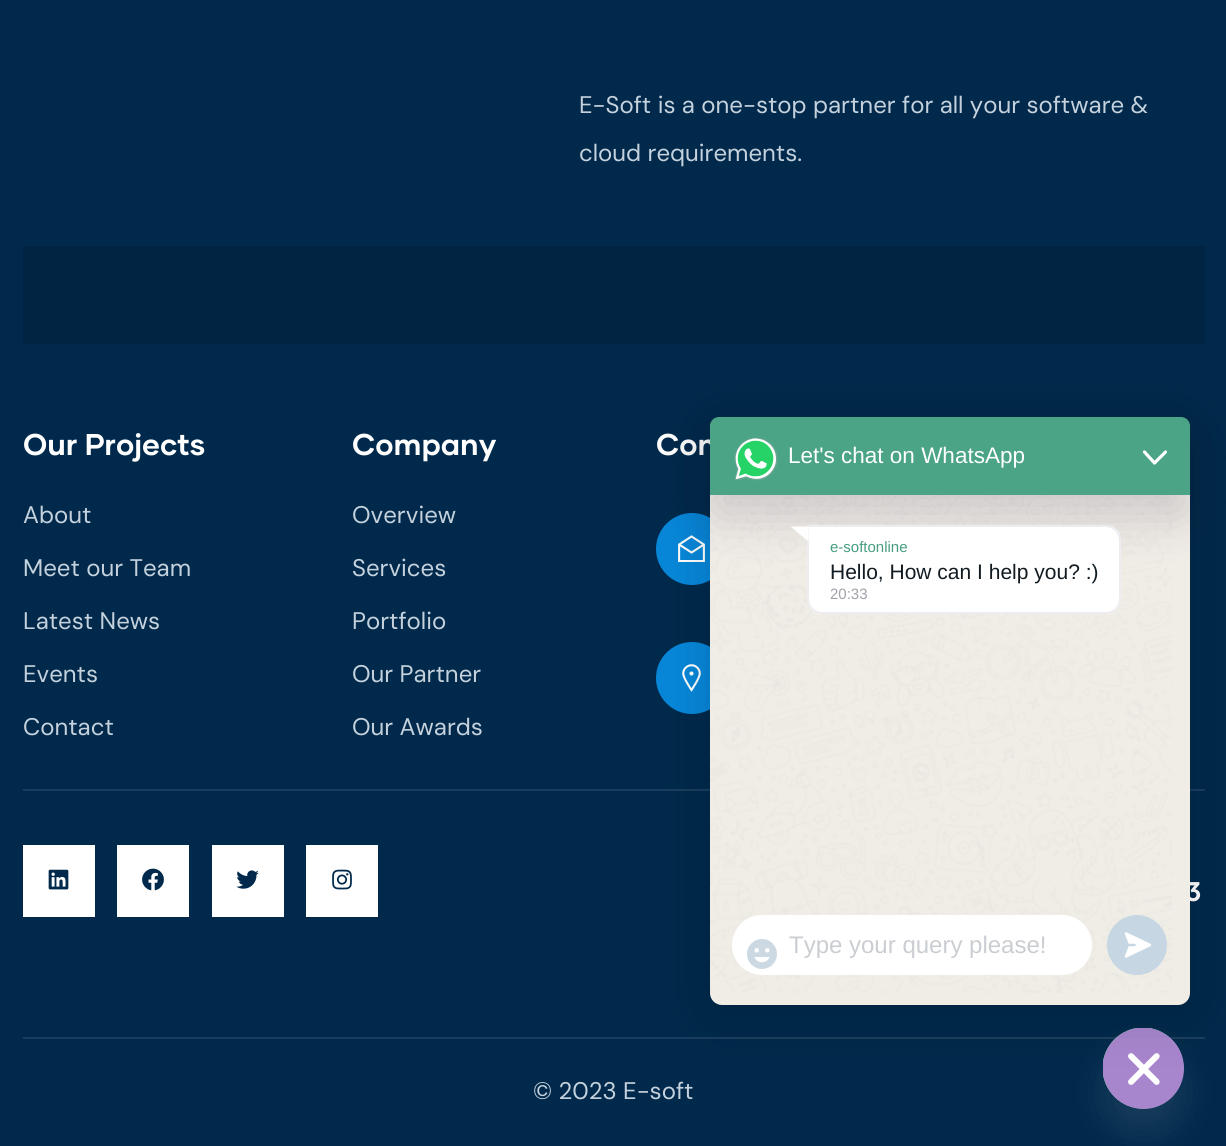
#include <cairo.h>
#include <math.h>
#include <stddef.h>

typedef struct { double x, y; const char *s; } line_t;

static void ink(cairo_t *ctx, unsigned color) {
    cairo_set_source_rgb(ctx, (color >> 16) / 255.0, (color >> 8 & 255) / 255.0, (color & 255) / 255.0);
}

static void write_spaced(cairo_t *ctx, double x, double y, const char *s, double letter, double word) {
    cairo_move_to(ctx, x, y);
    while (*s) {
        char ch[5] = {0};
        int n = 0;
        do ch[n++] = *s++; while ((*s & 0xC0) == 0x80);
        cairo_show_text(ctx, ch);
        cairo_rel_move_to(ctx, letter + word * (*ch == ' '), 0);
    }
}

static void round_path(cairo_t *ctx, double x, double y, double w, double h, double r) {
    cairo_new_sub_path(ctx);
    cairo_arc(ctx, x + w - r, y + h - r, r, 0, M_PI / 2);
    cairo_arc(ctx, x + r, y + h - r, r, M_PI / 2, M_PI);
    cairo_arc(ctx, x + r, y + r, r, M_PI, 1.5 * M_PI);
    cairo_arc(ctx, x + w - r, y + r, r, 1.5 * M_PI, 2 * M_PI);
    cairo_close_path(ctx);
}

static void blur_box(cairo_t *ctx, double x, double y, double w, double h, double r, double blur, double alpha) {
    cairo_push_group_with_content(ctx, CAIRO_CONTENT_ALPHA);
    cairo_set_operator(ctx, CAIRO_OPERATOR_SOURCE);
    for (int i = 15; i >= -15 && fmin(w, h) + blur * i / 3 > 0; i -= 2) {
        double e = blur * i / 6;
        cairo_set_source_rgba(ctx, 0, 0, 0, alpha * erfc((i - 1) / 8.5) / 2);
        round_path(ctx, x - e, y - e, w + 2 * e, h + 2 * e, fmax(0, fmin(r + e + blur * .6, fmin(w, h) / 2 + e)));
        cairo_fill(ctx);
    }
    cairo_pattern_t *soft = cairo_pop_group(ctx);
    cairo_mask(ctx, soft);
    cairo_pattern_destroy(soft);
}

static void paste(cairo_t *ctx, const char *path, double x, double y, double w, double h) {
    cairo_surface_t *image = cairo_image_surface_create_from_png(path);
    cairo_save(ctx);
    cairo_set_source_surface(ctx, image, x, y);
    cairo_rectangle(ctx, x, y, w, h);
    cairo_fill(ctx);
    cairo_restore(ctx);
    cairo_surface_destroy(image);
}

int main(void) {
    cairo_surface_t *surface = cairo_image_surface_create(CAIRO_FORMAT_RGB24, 1226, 1146);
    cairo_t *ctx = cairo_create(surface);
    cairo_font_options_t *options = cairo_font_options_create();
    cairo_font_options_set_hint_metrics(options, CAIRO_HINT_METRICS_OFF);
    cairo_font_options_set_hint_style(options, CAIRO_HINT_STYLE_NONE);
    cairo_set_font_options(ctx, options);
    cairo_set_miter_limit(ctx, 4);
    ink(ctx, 0x00294B);
    cairo_paint(ctx);
    cairo_select_font_face(ctx, "DM Sans", CAIRO_FONT_SLANT_NORMAL, CAIRO_FONT_WEIGHT_NORMAL);
    cairo_set_font_size(ctx, 24);
    ink(ctx, 0xC5D2DD);
    cairo_move_to(ctx, 579, 113);
    cairo_show_text(ctx, "E-Soft is a one-stop partner for all your software &");
    cairo_move_to(ctx, 579, 161);
    cairo_show_text(ctx, "cloud requirements.");
    ink(ctx, 0x002442);
    cairo_rectangle(ctx, 23, 246, 1182, 98);
    cairo_fill(ctx);
    cairo_select_font_face(ctx, "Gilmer", CAIRO_FONT_SLANT_NORMAL, CAIRO_FONT_WEIGHT_BOLD);
    cairo_set_font_size(ctx, 30);
    ink(ctx, 0xFFFFFF);
    cairo_move_to(ctx, 23, 455);
    cairo_show_text(ctx, "Our Projects");
    cairo_select_font_face(ctx, "DM Sans", CAIRO_FONT_SLANT_NORMAL, CAIRO_FONT_WEIGHT_NORMAL);
    cairo_set_font_size(ctx, 24);
    ink(ctx, 0xC5D2DD);
    {
        static const line_t items[] = {
            {23, 523, "About"},
            {23, 576, "Meet our Team"},
            {23, 629, "Latest News"},
            {23, 682, "Events"},
            {23, 735, "Contact"},
        };
        for (size_t i = 0; i < sizeof items / sizeof *items; i++) {
            cairo_move_to(ctx, items[i].x, items[i].y);
            cairo_show_text(ctx, items[i].s);
        }
    }
    cairo_select_font_face(ctx, "Gilmer", CAIRO_FONT_SLANT_NORMAL, CAIRO_FONT_WEIGHT_BOLD);
    cairo_set_font_size(ctx, 30);
    ink(ctx, 0xFFFFFF);
    cairo_move_to(ctx, 352, 455);
    cairo_show_text(ctx, "Company");
    cairo_select_font_face(ctx, "DM Sans", CAIRO_FONT_SLANT_NORMAL, CAIRO_FONT_WEIGHT_NORMAL);
    cairo_set_font_size(ctx, 24);
    ink(ctx, 0xC5D2DD);
    {
        static const line_t items[] = {
            {352, 523, "Overview"},
            {352, 576, "Services"},
            {352, 629, "Portfolio"},
            {352, 682, "Our Partner"},
            {352, 735, "Our Awards"},
        };
        for (size_t i = 0; i < sizeof items / sizeof *items; i++) {
            cairo_move_to(ctx, items[i].x, items[i].y);
            cairo_show_text(ctx, items[i].s);
        }
    }
    cairo_select_font_face(ctx, "Gilmer", CAIRO_FONT_SLANT_NORMAL, CAIRO_FONT_WEIGHT_BOLD);
    cairo_set_font_size(ctx, 30);
    ink(ctx, 0xFFFFFF);
    cairo_move_to(ctx, 656, 455);
    cairo_show_text(ctx, "Con");
    ink(ctx, 0x0787D9);
    cairo_new_path(ctx);
    cairo_arc(ctx, 692, 549, 36, 0, 2 * M_PI);
    cairo_fill(ctx);
    paste(ctx, "media/1.png", 678, 535, 27, 27);
    cairo_arc(ctx, 692, 678, 36, 0, 2 * M_PI);
    cairo_fill(ctx);
    paste(ctx, "media/2.png", 682, 664, 19, 28);
    ink(ctx, 0x1A3E5D);
    cairo_rectangle(ctx, 23, 789, 1182, 2);
    cairo_fill(ctx);
    ink(ctx, 0xFFFFFF);
    cairo_rectangle(ctx, 23, 845, 72, 72);
    cairo_fill(ctx);
    paste(ctx, "media/3.png", 48, 869, 21, 21);
    cairo_rectangle(ctx, 117, 845, 72, 72);
    cairo_fill(ctx);
    paste(ctx, "media/4.png", 142, 868, 22, 23);
    cairo_rectangle(ctx, 212, 845, 72, 72);
    cairo_fill(ctx);
    paste(ctx, "media/5.png", 236, 870, 23, 19);
    cairo_rectangle(ctx, 306, 845, 72, 72);
    cairo_fill(ctx);
    paste(ctx, "media/6.png", 332, 869, 20, 21);
    cairo_set_font_size(ctx, 27);
    write_spaced(ctx, 1185, 901, "3", 3, 0);
    ink(ctx, 0x1A3E5D);
    cairo_rectangle(ctx, 23, 1037, 1182, 2);
    cairo_fill(ctx);
    cairo_select_font_face(ctx, "DM Sans", CAIRO_FONT_SLANT_NORMAL, CAIRO_FONT_WEIGHT_NORMAL);
    cairo_set_font_size(ctx, 24);
    ink(ctx, 0xC5D2DD);
    cairo_move_to(ctx, 533, 1099);
    cairo_show_text(ctx, "© 2023 E-soft");
    ink(ctx, 0x49687E);
    blur_box(ctx, 1103, 1052, 81, 81, 40.5, 18, 0.16);
    paste(ctx, "media/10.png", 1103, 1028, 81, 81);
    blur_box(ctx, 1103, 1052, 81, 81, 40.5, 18, 0.16);
    ink(ctx, 0xA886CD);
    cairo_arc(ctx, 1143.5, 1068.5, 40.5, 0, 2 * M_PI);
    cairo_fill(ctx);
    paste(ctx, "media/11.png", 1103, 1028, 79, 79);
    ink(ctx, 0x000000);
    blur_box(ctx, 710, 425, 480, 588, 9, 30, 0.16);
    ink(ctx, 0xF0EDE7);
    round_path(ctx, 710, 417, 480, 588, 12);
    cairo_fill(ctx);
    paste(ctx, "media/8.png", 710, 495, 462, 498);
    ink(ctx, 0x1A0E35);
    blur_box(ctx, 710, 441, 480, 78, 9, 24, 0.16);
    ink(ctx, 0x4AA485);
    cairo_new_path(ctx);
    cairo_move_to(ctx, 719, 417);
    cairo_line_to(ctx, 1181, 417);
    cairo_curve_to(ctx, 1186, 417, 1190, 421, 1190, 426);
    cairo_line_to(ctx, 1190, 495);
    cairo_line_to(ctx, 710, 495);
    cairo_line_to(ctx, 710, 426);
    cairo_curve_to(ctx, 710, 421, 714, 417, 719, 417);
    cairo_close_path(ctx);
    cairo_fill(ctx);
    paste(ctx, "media/7.png", 734, 437, 44, 44);
    cairo_select_font_face(ctx, "Liberation Sans", CAIRO_FONT_SLANT_NORMAL, CAIRO_FONT_WEIGHT_NORMAL);
    cairo_set_font_size(ctx, 22.5);
    ink(ctx, 0xFFFFFF);
    cairo_move_to(ctx, 788, 463);
    cairo_show_text(ctx, "Let's chat on WhatsApp");
    cairo_new_path(ctx);
    cairo_move_to(ctx, 1144.5, 452);
    cairo_line_to(ctx, 1154.5, 463);
    cairo_line_to(ctx, 1165.5, 452);
    cairo_set_line_width(ctx, 3.2);
    cairo_set_line_cap(ctx, CAIRO_LINE_CAP_ROUND);
    cairo_set_line_join(ctx, CAIRO_LINE_JOIN_ROUND);
    cairo_stroke(ctx);
    cairo_new_path(ctx);
    cairo_move_to(ctx, 807, 525);
    cairo_line_to(ctx, 1106, 525);
    cairo_curve_to(ctx, 1114.5, 525, 1121, 531.5, 1121, 540);
    cairo_line_to(ctx, 1121, 599);
    cairo_curve_to(ctx, 1121, 607.5, 1114.5, 614, 1106, 614);
    cairo_line_to(ctx, 822, 614);
    cairo_curve_to(ctx, 813.5, 614, 807, 607.5, 807, 599);
    cairo_close_path(ctx);
    cairo_fill(ctx);
    cairo_new_path(ctx);
    cairo_move_to(ctx, 808, 526);
    cairo_line_to(ctx, 1106, 526);
    cairo_curve_to(ctx, 1113.5, 526, 1120, 532.5, 1120, 540);
    cairo_line_to(ctx, 1120, 599);
    cairo_curve_to(ctx, 1120, 606.5, 1113.5, 613, 1106, 613);
    cairo_line_to(ctx, 822, 613);
    cairo_curve_to(ctx, 814.5, 613, 808, 606.5, 808, 599);
    cairo_close_path(ctx);
    cairo_set_source_rgba(ctx, 0.133, 0.067, 0.278, 0.08);
    cairo_set_line_width(ctx, 2);
    cairo_set_line_cap(ctx, CAIRO_LINE_CAP_BUTT);
    cairo_set_line_join(ctx, CAIRO_LINE_JOIN_MITER);
    cairo_stroke(ctx);
    ink(ctx, 0xFFFFFF);
    cairo_new_path(ctx);
    cairo_move_to(ctx, 808.5, 526.5);
    cairo_line_to(ctx, 808.5, 541.5);
    cairo_line_to(ctx, 790.5, 526.5);
    cairo_close_path(ctx);
    cairo_fill(ctx);
    cairo_set_font_size(ctx, 15);
    ink(ctx, 0x489D81);
    cairo_move_to(ctx, 830, 552);
    cairo_show_text(ctx, "e-softonline");
    cairo_set_font_size(ctx, 21);
    ink(ctx, 0x111B21);
    cairo_move_to(ctx, 830, 579);
    cairo_show_text(ctx, "Hello, How can I help you? :)");
    cairo_set_font_size(ctx, 15);
    ink(ctx, 0xA1A1A9);
    cairo_move_to(ctx, 830, 599);
    cairo_show_text(ctx, "20:33");
    ink(ctx, 0xFFFFFF);
    round_path(ctx, 732, 915, 360, 60, 30);
    cairo_fill(ctx);
    paste(ctx, "media/9.png", 747, 939, 30, 30);
    cairo_set_font_size(ctx, 24);
    ink(ctx, 0xCACDD1);
    cairo_move_to(ctx, 789, 953);
    cairo_show_text(ctx, "Type your query please!");
    ink(ctx, 0xC6D7E3);
    cairo_new_path(ctx);
    cairo_arc(ctx, 1137, 945, 30, 0, 2 * M_PI);
    cairo_fill(ctx);
    ink(ctx, 0xFFFFFF);
    cairo_new_path(ctx);
    cairo_move_to(ctx, 1150, 945);
    cairo_line_to(ctx, 1126, 956.5);
    cairo_line_to(ctx, 1130.5, 945);
    cairo_line_to(ctx, 1126, 933.5);
    cairo_close_path(ctx);
    cairo_fill_preserve(ctx);
    cairo_set_line_width(ctx, 2.5);
    cairo_set_line_cap(ctx, CAIRO_LINE_CAP_ROUND);
    cairo_set_line_join(ctx, CAIRO_LINE_JOIN_ROUND);
    cairo_stroke(ctx);
    cairo_new_path(ctx);
    cairo_move_to(ctx, 1134.5, 945);
    cairo_line_to(ctx, 1126.5, 945);
    ink(ctx, 0xC6D7E3);
    cairo_stroke(ctx);
    cairo_surface_write_to_png(surface, "image.png");
    cairo_font_options_destroy(options);
    cairo_destroy(ctx);
    cairo_surface_destroy(surface);
    return 0;
}
